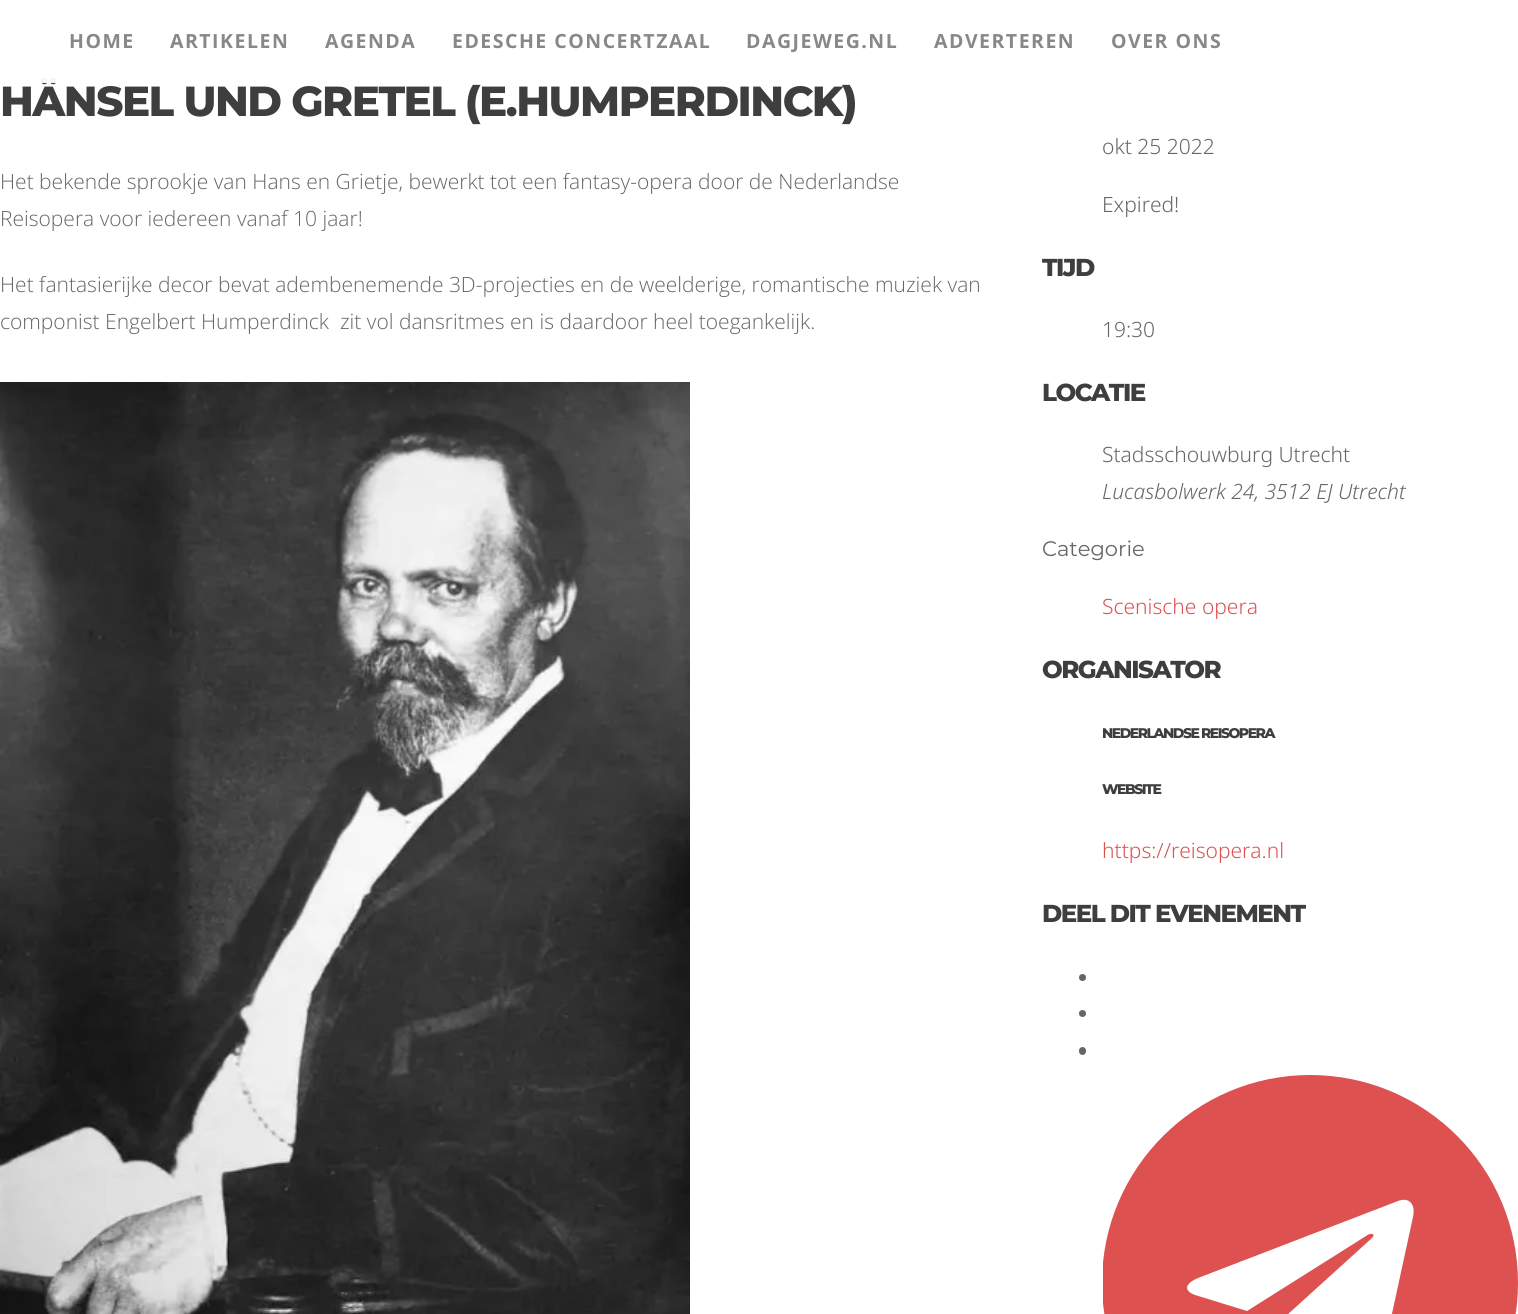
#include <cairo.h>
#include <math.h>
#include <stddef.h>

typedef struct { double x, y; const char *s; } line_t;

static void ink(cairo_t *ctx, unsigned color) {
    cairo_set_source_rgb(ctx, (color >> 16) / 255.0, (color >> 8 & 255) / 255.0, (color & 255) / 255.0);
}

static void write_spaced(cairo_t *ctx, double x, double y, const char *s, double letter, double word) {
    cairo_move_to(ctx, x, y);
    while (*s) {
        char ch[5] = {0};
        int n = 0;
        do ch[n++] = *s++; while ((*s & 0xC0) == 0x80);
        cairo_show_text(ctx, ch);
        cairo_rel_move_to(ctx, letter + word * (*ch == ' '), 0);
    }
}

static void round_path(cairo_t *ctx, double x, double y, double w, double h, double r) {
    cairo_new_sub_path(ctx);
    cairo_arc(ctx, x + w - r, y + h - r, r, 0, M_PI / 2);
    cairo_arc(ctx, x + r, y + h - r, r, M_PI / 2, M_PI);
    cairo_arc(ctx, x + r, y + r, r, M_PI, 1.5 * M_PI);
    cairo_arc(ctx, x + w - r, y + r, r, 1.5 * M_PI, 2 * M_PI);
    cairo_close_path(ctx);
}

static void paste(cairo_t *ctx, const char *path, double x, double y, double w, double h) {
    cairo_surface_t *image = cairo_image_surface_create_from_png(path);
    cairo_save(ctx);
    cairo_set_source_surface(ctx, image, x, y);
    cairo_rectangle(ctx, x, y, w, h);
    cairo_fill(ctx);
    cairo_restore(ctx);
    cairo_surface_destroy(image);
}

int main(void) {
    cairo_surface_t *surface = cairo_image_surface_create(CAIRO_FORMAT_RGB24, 1518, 1314);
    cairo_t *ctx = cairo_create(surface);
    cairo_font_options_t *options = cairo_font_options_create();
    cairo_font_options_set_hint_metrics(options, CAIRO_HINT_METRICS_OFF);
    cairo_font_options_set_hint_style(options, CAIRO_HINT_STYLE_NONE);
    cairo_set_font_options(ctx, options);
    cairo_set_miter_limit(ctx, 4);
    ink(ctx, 0xFFFFFF);
    cairo_paint(ctx);
    cairo_select_font_face(ctx, "Montserrat ExtraBold", CAIRO_FONT_SLANT_NORMAL, CAIRO_FONT_WEIGHT_NORMAL);
    cairo_set_font_size(ctx, 42);
    ink(ctx, 0x3E3E3E);
    write_spaced(ctx, 0, 116, "HÄNSEL UND GRETEL (E.HUMPERDINCK)", -1.5, 0);
    cairo_set_source_rgba(ctx, 1, 1, 1, 0.95);
    cairo_rectangle(ctx, 41, 77, 16, 6);
    cairo_fill(ctx);
    cairo_select_font_face(ctx, "Open Sans", CAIRO_FONT_SLANT_NORMAL, CAIRO_FONT_WEIGHT_BOLD);
    cairo_set_font_size(ctx, 19.5);
    ink(ctx, 0x888888);
    {
        static const line_t items[] = {
            {69, 48, "HOME"},
            {170, 48, "ARTIKELEN"},
            {325, 48, "AGENDA"},
            {452, 48, "EDESCHE CONCERTZAAL"},
            {746, 48, "DAGJEWEG.NL"},
            {934, 48, "ADVERTEREN"},
            {1111, 48, "OVER ONS"},
        };
        for (size_t i = 0; i < sizeof items / sizeof *items; i++) {
            write_spaced(ctx, items[i].x, items[i].y, items[i].s, 1.5, 0);
        }
    }
    cairo_select_font_face(ctx, "Open Sans Light", CAIRO_FONT_SLANT_NORMAL, CAIRO_FONT_WEIGHT_NORMAL);
    cairo_set_font_size(ctx, 21);
    ink(ctx, 0x666666);
    {
        static const line_t items[] = {
            {0, 189, "Het bekende sprookje van Hans en Grietje, bewerkt tot een fantasy-opera door de Nederlandse"},
            {0, 226, "Reisopera voor iedereen vanaf 10 jaar!"},
            {0, 292, "Het fantasierijke decor bevat adembenemende 3D-projecties en de weelderige, romantische muziek van"},
            {0, 329, "componist Engelbert Humperdinck  zit vol dansritmes en is daardoor heel toegankelijk."},
        };
        for (size_t i = 0; i < sizeof items / sizeof *items; i++) {
            cairo_move_to(ctx, items[i].x, items[i].y);
            cairo_show_text(ctx, items[i].s);
        }
    }
    paste(ctx, "media/1.png", 0, 382, 690, 932);
    cairo_select_font_face(ctx, "Noto Sans Light", CAIRO_FONT_SLANT_NORMAL, CAIRO_FONT_WEIGHT_NORMAL);
    cairo_move_to(ctx, 1102, 154);
    cairo_show_text(ctx, "okt 25 2022");
    cairo_move_to(ctx, 1102, 212);
    cairo_show_text(ctx, "Expired!");
    cairo_select_font_face(ctx, "Montserrat ExtraBold", CAIRO_FONT_SLANT_NORMAL, CAIRO_FONT_WEIGHT_NORMAL);
    cairo_set_font_size(ctx, 24.5);
    ink(ctx, 0x3E3E3E);
    write_spaced(ctx, 1042, 276, "TIJD", -1.5, 0);
    cairo_select_font_face(ctx, "Noto Sans Light", CAIRO_FONT_SLANT_NORMAL, CAIRO_FONT_WEIGHT_NORMAL);
    cairo_set_font_size(ctx, 21);
    ink(ctx, 0x666666);
    cairo_move_to(ctx, 1102, 337);
    cairo_show_text(ctx, "19:30");
    cairo_select_font_face(ctx, "Montserrat ExtraBold", CAIRO_FONT_SLANT_NORMAL, CAIRO_FONT_WEIGHT_NORMAL);
    cairo_set_font_size(ctx, 24.5);
    ink(ctx, 0x3E3E3E);
    write_spaced(ctx, 1042, 401, "LOCATIE", -1.5, 0);
    cairo_select_font_face(ctx, "Noto Sans Light", CAIRO_FONT_SLANT_NORMAL, CAIRO_FONT_WEIGHT_NORMAL);
    cairo_set_font_size(ctx, 21);
    ink(ctx, 0x666666);
    cairo_move_to(ctx, 1102, 462);
    cairo_show_text(ctx, "Stadsschouwburg Utrecht");
    cairo_select_font_face(ctx, "Noto Sans Light", CAIRO_FONT_SLANT_ITALIC, CAIRO_FONT_WEIGHT_NORMAL);
    cairo_move_to(ctx, 1102, 499);
    cairo_show_text(ctx, "Lucasbolwerk 24, 3512 EJ Utrecht");
    cairo_select_font_face(ctx, "Montserrat", CAIRO_FONT_SLANT_NORMAL, CAIRO_FONT_WEIGHT_NORMAL);
    cairo_move_to(ctx, 1042, 556);
    cairo_show_text(ctx, "Categorie");
    cairo_select_font_face(ctx, "Noto Sans Light", CAIRO_FONT_SLANT_NORMAL, CAIRO_FONT_WEIGHT_NORMAL);
    ink(ctx, 0xDD5151);
    cairo_move_to(ctx, 1102, 614);
    cairo_show_text(ctx, "Scenische opera");
    cairo_select_font_face(ctx, "Montserrat ExtraBold", CAIRO_FONT_SLANT_NORMAL, CAIRO_FONT_WEIGHT_NORMAL);
    cairo_set_font_size(ctx, 24.5);
    ink(ctx, 0x3E3E3E);
    write_spaced(ctx, 1042, 678, "ORGANISATOR", -1.5, 0);
    cairo_set_font_size(ctx, 14);
    write_spaced(ctx, 1102, 738, "NEDERLANDSE REISOPERA", -1.5, 0);
    write_spaced(ctx, 1102, 794, "WEBSITE", -1.5, 0);
    cairo_select_font_face(ctx, "Noto Sans Light", CAIRO_FONT_SLANT_NORMAL, CAIRO_FONT_WEIGHT_NORMAL);
    cairo_set_font_size(ctx, 21);
    ink(ctx, 0xDD5151);
    cairo_move_to(ctx, 1102, 858);
    cairo_show_text(ctx, "https://reisopera.nl");
    cairo_select_font_face(ctx, "Montserrat ExtraBold", CAIRO_FONT_SLANT_NORMAL, CAIRO_FONT_WEIGHT_NORMAL);
    cairo_set_font_size(ctx, 24.5);
    ink(ctx, 0x3E3E3E);
    write_spaced(ctx, 1042, 922, "DEEL DIT EVENEMENT", -1.5, 0);
    ink(ctx, 0x666666);
    cairo_new_path(ctx);
    cairo_arc(ctx, 1082.5, 977.5, 3.5, 0, 2 * M_PI);
    cairo_fill(ctx);
    cairo_arc(ctx, 1082.5, 1013.5, 3.5, 0, 2 * M_PI);
    cairo_fill(ctx);
    round_path(ctx, 1079, 1047, 7, 8, 3.5);
    cairo_fill(ctx);
    cairo_save(ctx);
    cairo_rectangle(ctx, 1103, 1068, 415, 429);
    cairo_clip(ctx);
    ink(ctx, 0xDD5151);
    cairo_new_path(ctx);
    cairo_move_to(ctx, 1310, 1075);
    cairo_curve_to(ctx, 1196, 1075, 1102, 1168, 1102, 1283);
    cairo_curve_to(ctx, 1102, 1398, 1196, 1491, 1310, 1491);
    cairo_curve_to(ctx, 1425, 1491, 1518, 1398, 1518, 1283);
    cairo_curve_to(ctx, 1518, 1168, 1425, 1075, 1310, 1075);
    cairo_close_path(ctx);
    cairo_move_to(ctx, 1413, 1217);
    cairo_line_to(ctx, 1378, 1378);
    cairo_curve_to(ctx, 1376, 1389, 1369, 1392, 1360, 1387);
    cairo_line_to(ctx, 1308, 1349);
    cairo_line_to(ctx, 1283, 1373);
    cairo_curve_to(ctx, 1280, 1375, 1278, 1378, 1272, 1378);
    cairo_line_to(ctx, 1276, 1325);
    cairo_line_to(ctx, 1372, 1238);
    cairo_curve_to(ctx, 1376, 1234, 1371, 1232, 1366, 1236);
    cairo_line_to(ctx, 1247, 1311);
    cairo_line_to(ctx, 1195, 1295);
    cairo_curve_to(ctx, 1184, 1291, 1184, 1284, 1198, 1278);
    cairo_line_to(ctx, 1398, 1201);
    cairo_curve_to(ctx, 1408, 1197, 1416, 1203, 1413, 1217);
    cairo_close_path(ctx);
    cairo_fill(ctx);
    cairo_restore(ctx);
    cairo_surface_write_to_png(surface, "image.png");
    cairo_font_options_destroy(options);
    cairo_destroy(ctx);
    cairo_surface_destroy(surface);
    return 0;
}
